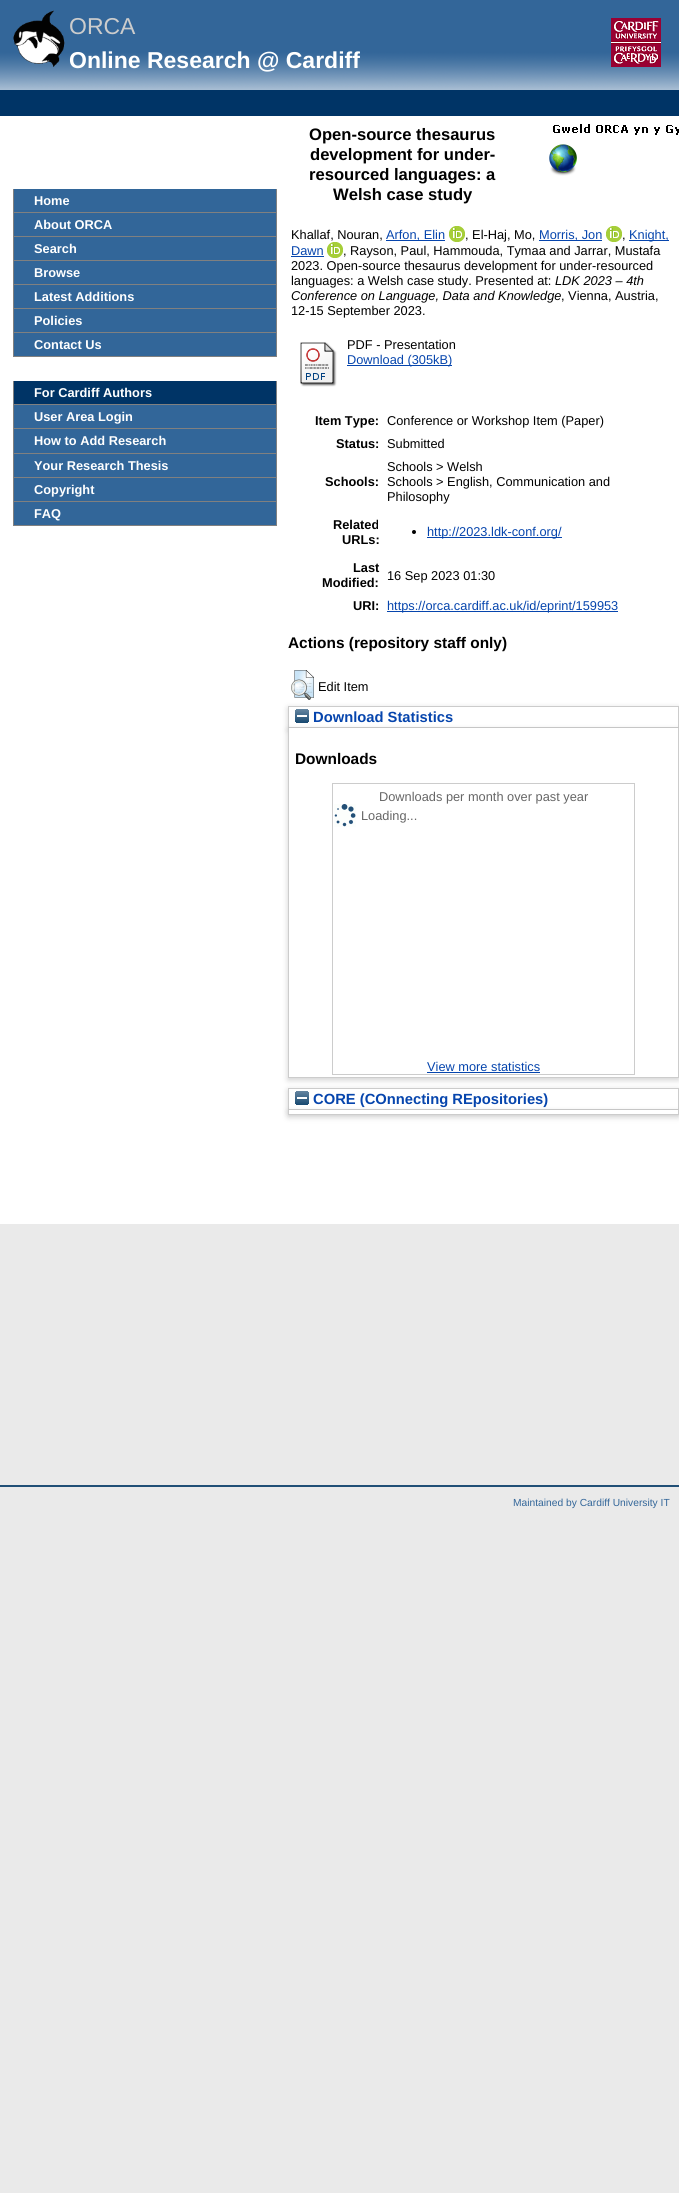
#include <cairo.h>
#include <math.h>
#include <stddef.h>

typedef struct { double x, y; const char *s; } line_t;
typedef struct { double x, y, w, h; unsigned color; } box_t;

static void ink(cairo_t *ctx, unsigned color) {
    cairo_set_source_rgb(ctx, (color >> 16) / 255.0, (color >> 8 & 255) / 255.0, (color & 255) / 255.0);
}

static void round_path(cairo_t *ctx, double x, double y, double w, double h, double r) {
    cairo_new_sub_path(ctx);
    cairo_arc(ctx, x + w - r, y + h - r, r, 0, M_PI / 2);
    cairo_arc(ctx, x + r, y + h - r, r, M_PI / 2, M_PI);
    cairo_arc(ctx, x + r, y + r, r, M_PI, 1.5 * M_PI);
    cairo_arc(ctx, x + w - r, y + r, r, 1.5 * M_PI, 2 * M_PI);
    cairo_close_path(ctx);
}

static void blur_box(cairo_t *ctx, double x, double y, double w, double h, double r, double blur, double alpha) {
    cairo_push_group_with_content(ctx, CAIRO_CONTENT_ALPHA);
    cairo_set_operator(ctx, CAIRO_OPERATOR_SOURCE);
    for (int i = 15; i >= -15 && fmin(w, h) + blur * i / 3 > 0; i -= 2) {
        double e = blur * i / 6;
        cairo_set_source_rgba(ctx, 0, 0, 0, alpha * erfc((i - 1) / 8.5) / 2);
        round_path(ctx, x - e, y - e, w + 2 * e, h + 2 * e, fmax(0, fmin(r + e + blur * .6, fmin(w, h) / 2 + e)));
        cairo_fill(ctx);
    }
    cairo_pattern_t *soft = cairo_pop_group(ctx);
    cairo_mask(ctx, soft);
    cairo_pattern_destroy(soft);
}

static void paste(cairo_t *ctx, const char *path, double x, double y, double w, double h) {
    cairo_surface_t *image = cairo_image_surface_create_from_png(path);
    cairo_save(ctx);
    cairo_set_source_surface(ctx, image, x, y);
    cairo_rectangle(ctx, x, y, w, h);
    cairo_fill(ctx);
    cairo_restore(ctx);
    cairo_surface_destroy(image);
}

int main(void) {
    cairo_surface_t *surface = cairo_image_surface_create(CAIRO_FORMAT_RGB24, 679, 2193);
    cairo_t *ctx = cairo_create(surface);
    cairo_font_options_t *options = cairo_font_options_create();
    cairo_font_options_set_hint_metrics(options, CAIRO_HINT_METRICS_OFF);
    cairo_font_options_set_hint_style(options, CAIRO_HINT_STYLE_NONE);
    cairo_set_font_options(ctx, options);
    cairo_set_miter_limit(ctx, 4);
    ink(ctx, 0xEAEAEA);
    cairo_paint(ctx);
    ink(ctx, 0xFFFFFF);
    cairo_rectangle(ctx, 0, 116, 679, 1108);
    cairo_fill(ctx);
    paste(ctx, "media/1.png", 0, 0, 679, 90);
    paste(ctx, "media/2.png", 13, 10, 52, 57);
    cairo_select_font_face(ctx, "Liberation Sans", CAIRO_FONT_SLANT_NORMAL, CAIRO_FONT_WEIGHT_NORMAL);
    cairo_set_font_size(ctx, 23);
    ink(ctx, 0xCCCCCC);
    cairo_move_to(ctx, 69, 34);
    cairo_show_text(ctx, "ORCA");
    paste(ctx, "media/3.png", 611, 18, 50, 49);
    cairo_select_font_face(ctx, "Liberation Sans", CAIRO_FONT_SLANT_NORMAL, CAIRO_FONT_WEIGHT_BOLD);
    ink(ctx, 0xFFFFFF);
    cairo_move_to(ctx, 69, 68);
    cairo_show_text(ctx, "Online Research @ Cardiff");
    ink(ctx, 0x003466);
    cairo_rectangle(ctx, 0, 90, 679, 26);
    cairo_fill(ctx);
    paste(ctx, "media/4.png", 553, 124, 126, 11);
    paste(ctx, "media/5.png", 549, 144, 28, 32);
    {
        static const box_t items[] = {
            {14, 189, 262, 23, 0x326699},
            {276, 189, 1, 168, 0x808080},
            {13, 212, 264, 1, 0x808080},
            {13, 189, 1, 24, 0x808080},
        };
        for (size_t i = 0; i < sizeof items / sizeof *items; i++) {
            ink(ctx, items[i].color);
            cairo_rectangle(ctx, items[i].x, items[i].y, items[i].w, items[i].h);
            cairo_fill(ctx);
        }
    }
    cairo_set_font_size(ctx, 12.8);
    ink(ctx, 0xFFFFFF);
    cairo_move_to(ctx, 34, 205);
    cairo_show_text(ctx, "Home");
    {
        static const box_t items[] = {
            {14, 213, 262, 23, 0x326699},
            {13, 236, 264, 1, 0x808080},
            {13, 213, 1, 24, 0x808080},
        };
        for (size_t i = 0; i < sizeof items / sizeof *items; i++) {
            ink(ctx, items[i].color);
            cairo_rectangle(ctx, items[i].x, items[i].y, items[i].w, items[i].h);
            cairo_fill(ctx);
        }
    }
    ink(ctx, 0xFFFFFF);
    cairo_move_to(ctx, 34, 229);
    cairo_show_text(ctx, "About ORCA");
    {
        static const box_t items[] = {
            {14, 237, 262, 23, 0x326699},
            {13, 260, 264, 1, 0x808080},
            {13, 237, 1, 24, 0x808080},
        };
        for (size_t i = 0; i < sizeof items / sizeof *items; i++) {
            ink(ctx, items[i].color);
            cairo_rectangle(ctx, items[i].x, items[i].y, items[i].w, items[i].h);
            cairo_fill(ctx);
        }
    }
    ink(ctx, 0xFFFFFF);
    cairo_move_to(ctx, 34, 253);
    cairo_show_text(ctx, "Search");
    {
        static const box_t items[] = {
            {14, 261, 262, 23, 0x326699},
            {13, 284, 264, 1, 0x808080},
            {13, 261, 1, 24, 0x808080},
        };
        for (size_t i = 0; i < sizeof items / sizeof *items; i++) {
            ink(ctx, items[i].color);
            cairo_rectangle(ctx, items[i].x, items[i].y, items[i].w, items[i].h);
            cairo_fill(ctx);
        }
    }
    ink(ctx, 0xFFFFFF);
    cairo_move_to(ctx, 34, 277);
    cairo_show_text(ctx, "Browse");
    {
        static const box_t items[] = {
            {14, 285, 262, 23, 0x326699},
            {13, 308, 264, 1, 0x808080},
            {13, 285, 1, 24, 0x808080},
        };
        for (size_t i = 0; i < sizeof items / sizeof *items; i++) {
            ink(ctx, items[i].color);
            cairo_rectangle(ctx, items[i].x, items[i].y, items[i].w, items[i].h);
            cairo_fill(ctx);
        }
    }
    ink(ctx, 0xFFFFFF);
    cairo_move_to(ctx, 34, 301);
    cairo_show_text(ctx, "Latest Additions");
    {
        static const box_t items[] = {
            {14, 309, 262, 23, 0x326699},
            {13, 332, 264, 1, 0x808080},
            {13, 309, 1, 24, 0x808080},
        };
        for (size_t i = 0; i < sizeof items / sizeof *items; i++) {
            ink(ctx, items[i].color);
            cairo_rectangle(ctx, items[i].x, items[i].y, items[i].w, items[i].h);
            cairo_fill(ctx);
        }
    }
    ink(ctx, 0xFFFFFF);
    cairo_move_to(ctx, 34, 325);
    cairo_show_text(ctx, "Policies");
    {
        static const box_t items[] = {
            {14, 333, 262, 23, 0x326699},
            {13, 356, 264, 1, 0x808080},
            {13, 333, 1, 24, 0x808080},
        };
        for (size_t i = 0; i < sizeof items / sizeof *items; i++) {
            ink(ctx, items[i].color);
            cairo_rectangle(ctx, items[i].x, items[i].y, items[i].w, items[i].h);
            cairo_fill(ctx);
        }
    }
    ink(ctx, 0xFFFFFF);
    cairo_move_to(ctx, 34, 349);
    cairo_show_text(ctx, "Contact Us");
    {
        static const box_t items[] = {
            {14, 381, 262, 23, 0x003466},
            {276, 381, 1, 145, 0x808080},
            {13, 404, 264, 1, 0x808080},
            {13, 381, 1, 24, 0x808080},
        };
        for (size_t i = 0; i < sizeof items / sizeof *items; i++) {
            ink(ctx, items[i].color);
            cairo_rectangle(ctx, items[i].x, items[i].y, items[i].w, items[i].h);
            cairo_fill(ctx);
        }
    }
    ink(ctx, 0xFFFFFF);
    cairo_move_to(ctx, 34, 397);
    cairo_show_text(ctx, "For Cardiff Authors");
    {
        static const box_t items[] = {
            {14, 405, 262, 23, 0x326699},
            {13, 428, 264, 1, 0x808080},
            {13, 405, 1, 24, 0x808080},
        };
        for (size_t i = 0; i < sizeof items / sizeof *items; i++) {
            ink(ctx, items[i].color);
            cairo_rectangle(ctx, items[i].x, items[i].y, items[i].w, items[i].h);
            cairo_fill(ctx);
        }
    }
    ink(ctx, 0xFFFFFF);
    cairo_move_to(ctx, 34, 421);
    cairo_show_text(ctx, "User Area Login");
    {
        static const box_t items[] = {
            {14, 429, 262, 24, 0x326699},
            {13, 453, 264, 1, 0x808080},
            {13, 429, 1, 25, 0x808080},
        };
        for (size_t i = 0; i < sizeof items / sizeof *items; i++) {
            ink(ctx, items[i].color);
            cairo_rectangle(ctx, items[i].x, items[i].y, items[i].w, items[i].h);
            cairo_fill(ctx);
        }
    }
    ink(ctx, 0xFFFFFF);
    cairo_move_to(ctx, 34, 445);
    cairo_show_text(ctx, "How to Add Research");
    {
        static const box_t items[] = {
            {14, 454, 262, 23, 0x326699},
            {13, 477, 264, 1, 0x808080},
            {13, 454, 1, 24, 0x808080},
        };
        for (size_t i = 0; i < sizeof items / sizeof *items; i++) {
            ink(ctx, items[i].color);
            cairo_rectangle(ctx, items[i].x, items[i].y, items[i].w, items[i].h);
            cairo_fill(ctx);
        }
    }
    ink(ctx, 0xFFFFFF);
    cairo_move_to(ctx, 34, 470);
    cairo_show_text(ctx, "Your Research Thesis");
    {
        static const box_t items[] = {
            {14, 478, 262, 23, 0x326699},
            {13, 501, 264, 1, 0x808080},
            {13, 478, 1, 24, 0x808080},
        };
        for (size_t i = 0; i < sizeof items / sizeof *items; i++) {
            ink(ctx, items[i].color);
            cairo_rectangle(ctx, items[i].x, items[i].y, items[i].w, items[i].h);
            cairo_fill(ctx);
        }
    }
    ink(ctx, 0xFFFFFF);
    cairo_move_to(ctx, 34, 494);
    cairo_show_text(ctx, "Copyright");
    {
        static const box_t items[] = {
            {14, 502, 262, 23, 0x326699},
            {13, 525, 264, 1, 0x808080},
            {13, 502, 1, 24, 0x808080},
        };
        for (size_t i = 0; i < sizeof items / sizeof *items; i++) {
            ink(ctx, items[i].color);
            cairo_rectangle(ctx, items[i].x, items[i].y, items[i].w, items[i].h);
            cairo_fill(ctx);
        }
    }
    ink(ctx, 0xFFFFFF);
    cairo_move_to(ctx, 34, 518);
    cairo_show_text(ctx, "FAQ");
    cairo_set_font_size(ctx, 16.6);
    ink(ctx, 0x000000);
    {
        static const line_t items[] = {
            {309, 140, "Open-source thesaurus"},
            {310, 160, "development for under-"},
            {309, 180, "resourced languages: a"},
            {333, 200, "Welsh case study"},
        };
        for (size_t i = 0; i < sizeof items / sizeof *items; i++) {
            cairo_move_to(ctx, items[i].x, items[i].y);
            cairo_show_text(ctx, items[i].s);
        }
    }
    cairo_select_font_face(ctx, "Liberation Sans", CAIRO_FONT_SLANT_NORMAL, CAIRO_FONT_WEIGHT_NORMAL);
    cairo_set_font_size(ctx, 12.8);
    cairo_move_to(ctx, 291, 239);
    cairo_show_text(ctx, "Khallaf, Nouran,");
    ink(ctx, 0x0645AD);
    cairo_rectangle(ctx, 386, 240, 59, 1);
    cairo_fill(ctx);
    cairo_move_to(ctx, 386, 239);
    cairo_show_text(ctx, "Arfon, Elin");
    paste(ctx, "media/6.png", 449, 226, 16, 16);
    ink(ctx, 0x000000);
    cairo_move_to(ctx, 465, 239);
    cairo_show_text(ctx, ", El-Haj, Mo,");
    ink(ctx, 0x0645AD);
    cairo_rectangle(ctx, 539, 240, 63, 1);
    cairo_fill(ctx);
    cairo_move_to(ctx, 539, 239);
    cairo_show_text(ctx, "Morris, Jon");
    paste(ctx, "media/6.png", 606, 226, 16, 16);
    ink(ctx, 0x000000);
    cairo_move_to(ctx, 622, 239);
    cairo_show_text(ctx, ",");
    ink(ctx, 0x0645AD);
    cairo_rectangle(ctx, 629, 240, 40, 1);
    cairo_fill(ctx);
    cairo_move_to(ctx, 629, 239);
    cairo_show_text(ctx, "Knight,");
    cairo_move_to(ctx, 291, 255);
    cairo_show_text(ctx, "Dawn");
    cairo_rectangle(ctx, 291, 256, 33, 1);
    cairo_fill(ctx);
    paste(ctx, "media/6.png", 327, 242, 16, 16);
    ink(ctx, 0x000000);
    {
        static const line_t items[] = {
            {343, 255, ", Rayson, Paul, Hammouda, Tymaa and Jarrar, Mustafa"},
            {291, 270, "2023. Open-source thesaurus development for under-resourced"},
            {291, 285, "languages: a Welsh case study. Presented at:"},
        };
        for (size_t i = 0; i < sizeof items / sizeof *items; i++) {
            cairo_move_to(ctx, items[i].x, items[i].y);
            cairo_show_text(ctx, items[i].s);
        }
    }
    cairo_select_font_face(ctx, "Liberation Sans", CAIRO_FONT_SLANT_ITALIC, CAIRO_FONT_WEIGHT_NORMAL);
    cairo_move_to(ctx, 555, 285);
    cairo_show_text(ctx, "LDK 2023 – 4th");
    cairo_move_to(ctx, 291, 300);
    cairo_show_text(ctx, "Conference on Language, Data and Knowledge");
    cairo_select_font_face(ctx, "Liberation Sans", CAIRO_FONT_SLANT_NORMAL, CAIRO_FONT_WEIGHT_NORMAL);
    cairo_move_to(ctx, 561, 300);
    cairo_show_text(ctx, ", Vienna, Austria,");
    cairo_move_to(ctx, 291, 315);
    cairo_show_text(ctx, "12-15 September 2023.");
    paste(ctx, "media/7.png", 300, 342, 37, 45);
    cairo_move_to(ctx, 347, 349);
    cairo_show_text(ctx, "PDF - Presentation");
    ink(ctx, 0x0645AD);
    cairo_rectangle(ctx, 347, 365, 105, 1);
    cairo_fill(ctx);
    cairo_move_to(ctx, 347, 364);
    cairo_show_text(ctx, "Download (305kB)");
    cairo_select_font_face(ctx, "Liberation Sans", CAIRO_FONT_SLANT_NORMAL, CAIRO_FONT_WEIGHT_BOLD);
    ink(ctx, 0x000000);
    cairo_move_to(ctx, 315, 425);
    cairo_show_text(ctx, "Item Type:");
    cairo_select_font_face(ctx, "Liberation Sans", CAIRO_FONT_SLANT_NORMAL, CAIRO_FONT_WEIGHT_NORMAL);
    cairo_move_to(ctx, 387, 425);
    cairo_show_text(ctx, "Conference or Workshop Item (Paper)");
    cairo_select_font_face(ctx, "Liberation Sans", CAIRO_FONT_SLANT_NORMAL, CAIRO_FONT_WEIGHT_BOLD);
    cairo_move_to(ctx, 336, 448);
    cairo_show_text(ctx, "Status:");
    cairo_select_font_face(ctx, "Liberation Sans", CAIRO_FONT_SLANT_NORMAL, CAIRO_FONT_WEIGHT_NORMAL);
    cairo_move_to(ctx, 387, 448);
    cairo_show_text(ctx, "Submitted");
    cairo_select_font_face(ctx, "Liberation Sans", CAIRO_FONT_SLANT_NORMAL, CAIRO_FONT_WEIGHT_BOLD);
    cairo_move_to(ctx, 325, 486);
    cairo_show_text(ctx, "Schools:");
    cairo_select_font_face(ctx, "Liberation Sans", CAIRO_FONT_SLANT_NORMAL, CAIRO_FONT_WEIGHT_NORMAL);
    {
        static const line_t items[] = {
            {387, 471, "Schools > Welsh"},
            {387, 486, "Schools > English, Communication and"},
            {387, 501, "Philosophy"},
        };
        for (size_t i = 0; i < sizeof items / sizeof *items; i++) {
            cairo_move_to(ctx, items[i].x, items[i].y);
            cairo_show_text(ctx, items[i].s);
        }
    }
    cairo_select_font_face(ctx, "Liberation Sans", CAIRO_FONT_SLANT_NORMAL, CAIRO_FONT_WEIGHT_BOLD);
    cairo_move_to(ctx, 333, 529);
    cairo_show_text(ctx, "Related");
    cairo_move_to(ctx, 342, 544);
    cairo_show_text(ctx, "URLs:");
    cairo_new_path(ctx);
    cairo_arc(ctx, 414, 532, 2, 0, 2 * M_PI);
    cairo_fill(ctx);
    ink(ctx, 0x0645AD);
    cairo_rectangle(ctx, 427, 537, 135, 1);
    cairo_fill(ctx);
    cairo_select_font_face(ctx, "Liberation Sans", CAIRO_FONT_SLANT_NORMAL, CAIRO_FONT_WEIGHT_NORMAL);
    cairo_move_to(ctx, 427, 536);
    cairo_show_text(ctx, "http://2023.ldk-conf.org/");
    cairo_select_font_face(ctx, "Liberation Sans", CAIRO_FONT_SLANT_NORMAL, CAIRO_FONT_WEIGHT_BOLD);
    ink(ctx, 0x000000);
    cairo_move_to(ctx, 353, 572);
    cairo_show_text(ctx, "Last");
    cairo_move_to(ctx, 322, 587);
    cairo_show_text(ctx, "Modified:");
    cairo_select_font_face(ctx, "Liberation Sans", CAIRO_FONT_SLANT_NORMAL, CAIRO_FONT_WEIGHT_NORMAL);
    cairo_move_to(ctx, 387, 580);
    cairo_show_text(ctx, "16 Sep 2023 01:30");
    cairo_select_font_face(ctx, "Liberation Sans", CAIRO_FONT_SLANT_NORMAL, CAIRO_FONT_WEIGHT_BOLD);
    cairo_move_to(ctx, 353, 610);
    cairo_show_text(ctx, "URI:");
    ink(ctx, 0x0645AD);
    cairo_rectangle(ctx, 387, 611, 231, 1);
    cairo_fill(ctx);
    cairo_select_font_face(ctx, "Liberation Sans", CAIRO_FONT_SLANT_NORMAL, CAIRO_FONT_WEIGHT_NORMAL);
    cairo_move_to(ctx, 387, 610);
    cairo_show_text(ctx, "https://orca.cardiff.ac.uk/id/eprint/159953");
    cairo_select_font_face(ctx, "Liberation Sans", CAIRO_FONT_SLANT_NORMAL, CAIRO_FONT_WEIGHT_BOLD);
    cairo_set_font_size(ctx, 15.4);
    ink(ctx, 0x000000);
    cairo_move_to(ctx, 288, 648);
    cairo_show_text(ctx, "Actions (repository staff only)");
    cairo_save(ctx);
    cairo_set_fill_rule(ctx, CAIRO_FILL_RULE_EVEN_ODD);
    cairo_new_path(ctx);
    cairo_move_to(ctx, 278, 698);
    cairo_line_to(ctx, 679, 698);
    cairo_line_to(ctx, 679, 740);
    cairo_line_to(ctx, 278, 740);
    cairo_close_path(ctx);
    cairo_move_to(ctx, 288, 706);
    cairo_line_to(ctx, 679, 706);
    cairo_line_to(ctx, 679, 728);
    cairo_line_to(ctx, 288, 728);
    cairo_close_path(ctx);
    cairo_clip(ctx);
    ink(ctx, 0x646464);
    blur_box(ctx, 288, 708, 391, 22, 0, 3, 0.3);
    cairo_restore(ctx);
    paste(ctx, "media/8.png", 291, 670, 23, 30);
    cairo_select_font_face(ctx, "Liberation Sans", CAIRO_FONT_SLANT_NORMAL, CAIRO_FONT_WEIGHT_NORMAL);
    cairo_set_font_size(ctx, 12.8);
    cairo_move_to(ctx, 318, 691);
    cairo_show_text(ctx, "Edit Item");
    cairo_rectangle(ctx, 288.5, 706.5, 390, 21);
    ink(ctx, 0xCCCCCC);
    cairo_set_line_width(ctx, 1);
    cairo_stroke(ctx);
    ink(ctx, 0x646464);
    blur_box(ctx, 288, 730, 391, 350, 0, 3, 0.3);
    paste(ctx, "media/9.png", 295, 709, 14, 14);
    cairo_select_font_face(ctx, "Liberation Sans", CAIRO_FONT_SLANT_NORMAL, CAIRO_FONT_WEIGHT_BOLD);
    cairo_set_font_size(ctx, 14.75);
    ink(ctx, 0x0645AD);
    cairo_move_to(ctx, 313, 722);
    cairo_show_text(ctx, "Download Statistics");
    {
        static const box_t items[] = {
            {289, 728, 389, 349, 0xFFFFFF},
            {678, 728, 1, 350, 0xCCCCCC},
            {288, 1077, 391, 1, 0xCCCCCC},
            {288, 728, 1, 350, 0xCCCCCC},
        };
        for (size_t i = 0; i < sizeof items / sizeof *items; i++) {
            ink(ctx, items[i].color);
            cairo_rectangle(ctx, items[i].x, items[i].y, items[i].w, items[i].h);
            cairo_fill(ctx);
        }
    }
    cairo_set_font_size(ctx, 15.4);
    ink(ctx, 0x000000);
    cairo_move_to(ctx, 295, 764);
    cairo_show_text(ctx, "Downloads");
    cairo_rectangle(ctx, 332.5, 783.5, 302, 291);
    ink(ctx, 0xCCCCCC);
    cairo_stroke(ctx);
    cairo_select_font_face(ctx, "Liberation Sans", CAIRO_FONT_SLANT_NORMAL, CAIRO_FONT_WEIGHT_NORMAL);
    cairo_set_font_size(ctx, 12.8);
    ink(ctx, 0x666666);
    cairo_move_to(ctx, 379, 801);
    cairo_show_text(ctx, "Downloads per month over past year");
    paste(ctx, "media/10.png", 334, 804, 22, 23);
    cairo_move_to(ctx, 361, 820);
    cairo_show_text(ctx, "Loading...");
    ink(ctx, 0x0645AD);
    cairo_move_to(ctx, 427, 1071);
    cairo_show_text(ctx, "View more statistics");
    cairo_rectangle(ctx, 427, 1072, 113, 1);
    cairo_fill(ctx);
    cairo_save(ctx);
    cairo_set_fill_rule(ctx, CAIRO_FILL_RULE_EVEN_ODD);
    cairo_new_path(ctx);
    cairo_move_to(ctx, 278, 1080);
    cairo_line_to(ctx, 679, 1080);
    cairo_line_to(ctx, 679, 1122);
    cairo_line_to(ctx, 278, 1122);
    cairo_close_path(ctx);
    cairo_move_to(ctx, 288, 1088);
    cairo_line_to(ctx, 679, 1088);
    cairo_line_to(ctx, 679, 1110);
    cairo_line_to(ctx, 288, 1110);
    cairo_close_path(ctx);
    cairo_clip(ctx);
    ink(ctx, 0x646464);
    blur_box(ctx, 288, 1090, 391, 22, 0, 3, 0.3);
    cairo_restore(ctx);
    cairo_rectangle(ctx, 288.5, 1088.5, 390, 21);
    ink(ctx, 0xCCCCCC);
    cairo_stroke(ctx);
    ink(ctx, 0x646464);
    blur_box(ctx, 288, 1112, 391, 5, 0, 3, 0.3);
    paste(ctx, "media/9.png", 295, 1091, 14, 14);
    cairo_select_font_face(ctx, "Liberation Sans", CAIRO_FONT_SLANT_NORMAL, CAIRO_FONT_WEIGHT_BOLD);
    cairo_set_font_size(ctx, 14.75);
    ink(ctx, 0x0645AD);
    cairo_move_to(ctx, 313, 1104);
    cairo_show_text(ctx, "CORE (COnnecting REpositories)");
    {
        static const box_t items[] = {
            {288, 1110, 391, 4, 0xFFFFFF},
            {678, 1110, 1, 5, 0xCCCCCC},
            {288, 1114, 391, 1, 0xCCCCCC},
            {288, 1110, 1, 5, 0xCCCCCC},
            {0, 1485, 679, 2, 0x204F76},
        };
        for (size_t i = 0; i < sizeof items / sizeof *items; i++) {
            ink(ctx, items[i].color);
            cairo_rectangle(ctx, items[i].x, items[i].y, items[i].w, items[i].h);
            cairo_fill(ctx);
        }
    }
    cairo_select_font_face(ctx, "Liberation Sans", CAIRO_FONT_SLANT_NORMAL, CAIRO_FONT_WEIGHT_NORMAL);
    cairo_set_font_size(ctx, 10.25);
    ink(ctx, 0x336699);
    cairo_move_to(ctx, 513, 1506);
    cairo_show_text(ctx, "Maintained by Cardiff University IT");
    cairo_surface_write_to_png(surface, "image.png");
    cairo_font_options_destroy(options);
    cairo_destroy(ctx);
    cairo_surface_destroy(surface);
    return 0;
}
